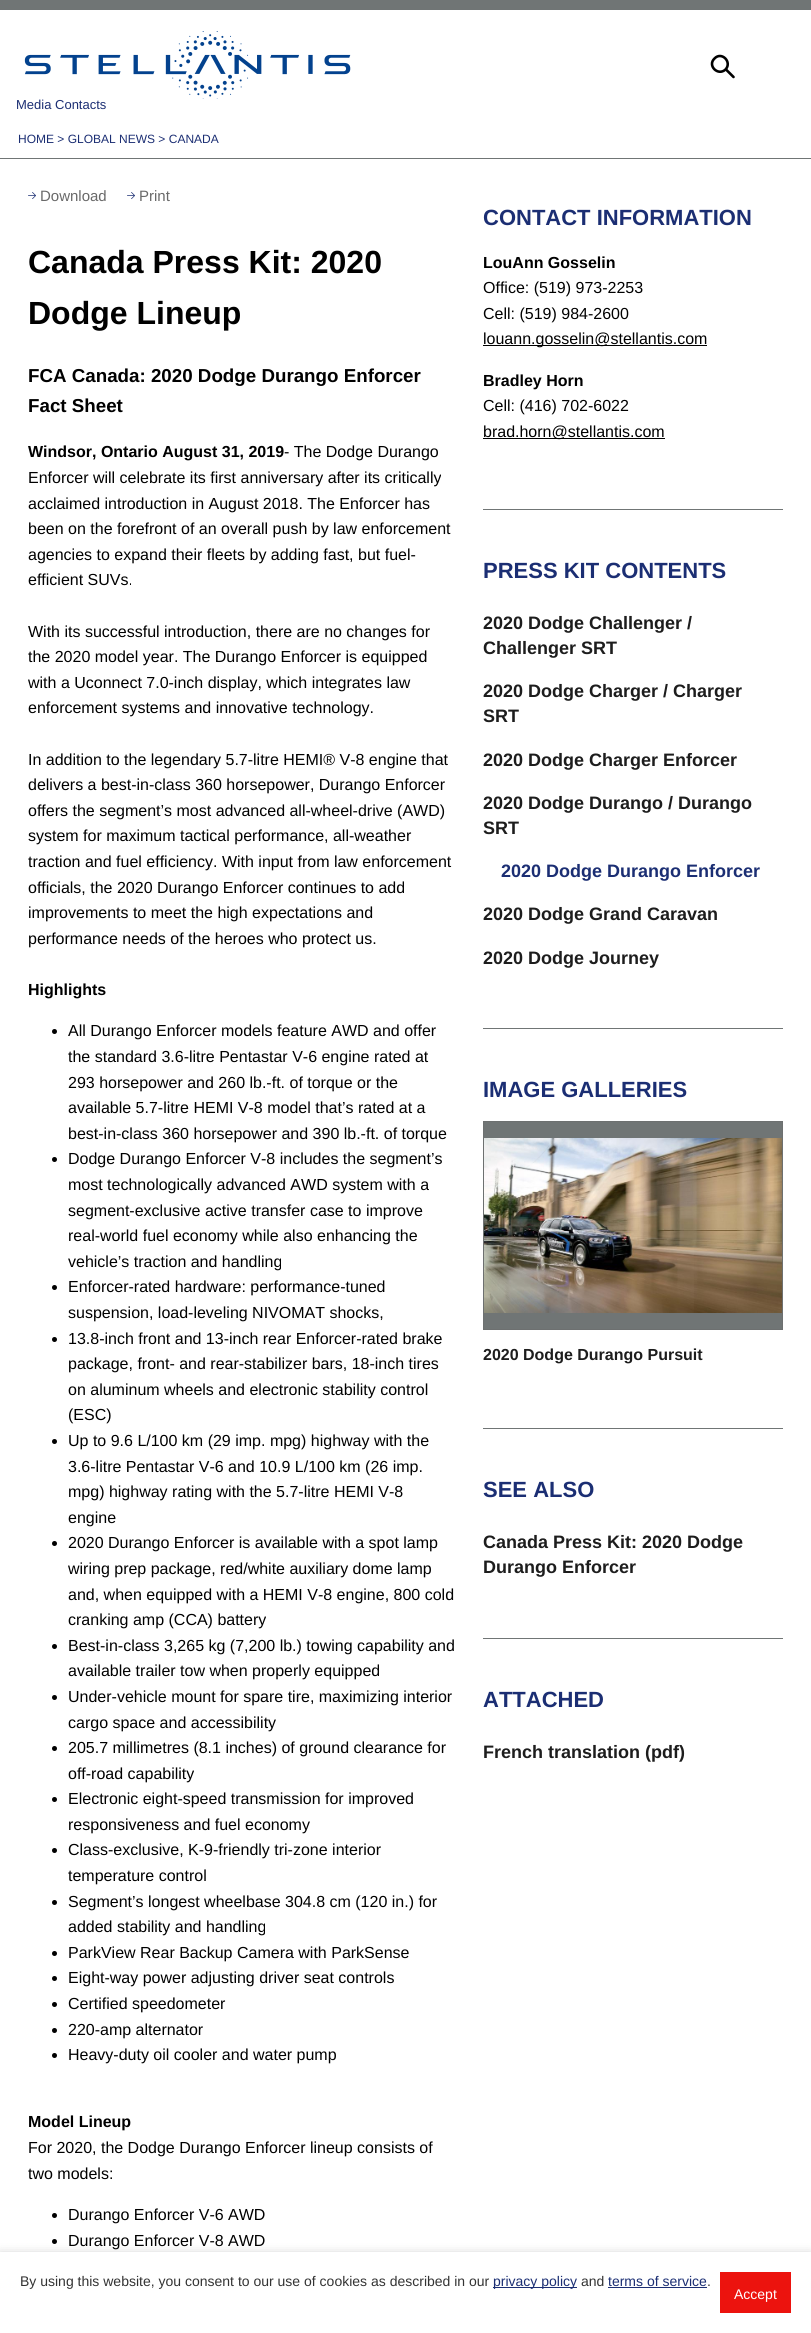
#include <cairo.h>
#include <math.h>
#include <stddef.h>

typedef struct { double x, y; const char *s; } line_t;

static void ink(cairo_t *ctx, unsigned color) {
    cairo_set_source_rgb(ctx, (color >> 16) / 255.0, (color >> 8 & 255) / 255.0, (color & 255) / 255.0);
}

static void round_path(cairo_t *ctx, double x, double y, double w, double h, double r) {
    cairo_new_sub_path(ctx);
    cairo_arc(ctx, x + w - r, y + h - r, r, 0, M_PI / 2);
    cairo_arc(ctx, x + r, y + h - r, r, M_PI / 2, M_PI);
    cairo_arc(ctx, x + r, y + r, r, M_PI, 1.5 * M_PI);
    cairo_arc(ctx, x + w - r, y + r, r, 1.5 * M_PI, 2 * M_PI);
    cairo_close_path(ctx);
}

static void blur_box(cairo_t *ctx, double x, double y, double w, double h, double r, double blur, double alpha) {
    cairo_push_group_with_content(ctx, CAIRO_CONTENT_ALPHA);
    cairo_set_operator(ctx, CAIRO_OPERATOR_SOURCE);
    for (int i = 15; i >= -15 && fmin(w, h) + blur * i / 3 > 0; i -= 2) {
        double e = blur * i / 6;
        cairo_set_source_rgba(ctx, 0, 0, 0, alpha * erfc((i - 1) / 8.5) / 2);
        round_path(ctx, x - e, y - e, w + 2 * e, h + 2 * e, fmax(0, fmin(r + e + blur * .6, fmin(w, h) / 2 + e)));
        cairo_fill(ctx);
    }
    cairo_pattern_t *soft = cairo_pop_group(ctx);
    cairo_mask(ctx, soft);
    cairo_pattern_destroy(soft);
}

static void paste(cairo_t *ctx, const char *path, double x, double y, double w, double h) {
    cairo_surface_t *image = cairo_image_surface_create_from_png(path);
    cairo_save(ctx);
    cairo_set_source_surface(ctx, image, x, y);
    cairo_rectangle(ctx, x, y, w, h);
    cairo_fill(ctx);
    cairo_restore(ctx);
    cairo_surface_destroy(image);
}

int main(void) {
    cairo_surface_t *surface = cairo_image_surface_create(CAIRO_FORMAT_RGB24, 811, 2333);
    cairo_t *ctx = cairo_create(surface);
    cairo_font_options_t *options = cairo_font_options_create();
    cairo_font_options_set_hint_metrics(options, CAIRO_HINT_METRICS_OFF);
    cairo_font_options_set_hint_style(options, CAIRO_HINT_STYLE_NONE);
    cairo_set_font_options(ctx, options);
    cairo_set_miter_limit(ctx, 4);
    ink(ctx, 0xFFFFFF);
    cairo_paint(ctx);
    ink(ctx, 0x707575);
    cairo_rectangle(ctx, 0, 0, 811, 10);
    cairo_fill(ctx);
    paste(ctx, "media/1.png", 24, 31, 327, 68);
    cairo_new_path(ctx);
    cairo_move_to(ctx, 714.5, 58.5);
    cairo_curve_to(ctx, 721.5, 51, 732.5, 62, 725.5, 69.5);
    cairo_curve_to(ctx, 718, 76.5, 707, 65.5, 714.5, 58.5);
    cairo_close_path(ctx);
    ink(ctx, 0x000000);
    cairo_set_line_width(ctx, 2.6);
    cairo_stroke(ctx);
    cairo_new_path(ctx);
    cairo_move_to(ctx, 726.5, 70);
    cairo_line_to(ctx, 733.5, 77);
    cairo_set_line_cap(ctx, CAIRO_LINE_CAP_ROUND);
    cairo_stroke(ctx);
    cairo_select_font_face(ctx, "Liberation Sans", CAIRO_FONT_SLANT_NORMAL, CAIRO_FONT_WEIGHT_NORMAL);
    cairo_set_font_size(ctx, 13);
    ink(ctx, 0x1B2E73);
    cairo_move_to(ctx, 16, 109);
    cairo_show_text(ctx, "Media Contacts");
    ink(ctx, 0x707575);
    cairo_rectangle(ctx, 0, 158, 811, 1);
    cairo_fill(ctx);
    cairo_set_font_size(ctx, 12);
    ink(ctx, 0x1B2E73);
    cairo_move_to(ctx, 18, 143);
    cairo_show_text(ctx, "HOME > GLOBAL NEWS > CANADA");
    paste(ctx, "media/2.png", 28, 192, 8, 7);
    cairo_set_font_size(ctx, 15);
    ink(ctx, 0x696969);
    cairo_move_to(ctx, 40, 201);
    cairo_show_text(ctx, "Download");
    paste(ctx, "media/2.png", 127, 192, 8, 7);
    cairo_move_to(ctx, 139, 201);
    cairo_show_text(ctx, "Print");
    cairo_select_font_face(ctx, "Liberation Sans", CAIRO_FONT_SLANT_NORMAL, CAIRO_FONT_WEIGHT_BOLD);
    cairo_set_font_size(ctx, 32);
    ink(ctx, 0x000000);
    cairo_move_to(ctx, 28, 273);
    cairo_show_text(ctx, "Canada Press Kit: 2020");
    cairo_move_to(ctx, 28, 324);
    cairo_show_text(ctx, "Dodge Lineup");
    cairo_set_font_size(ctx, 18.75);
    cairo_move_to(ctx, 28, 382);
    cairo_show_text(ctx, "FCA Canada: 2020 Dodge Durango Enforcer");
    cairo_move_to(ctx, 28, 412);
    cairo_show_text(ctx, "Fact Sheet");
    cairo_set_font_size(ctx, 16);
    cairo_move_to(ctx, 28, 457);
    cairo_show_text(ctx, "Windsor, Ontario August 31, 2019");
    cairo_select_font_face(ctx, "Liberation Sans", CAIRO_FONT_SLANT_NORMAL, CAIRO_FONT_WEIGHT_NORMAL);
    {
        static const line_t items[] = {
            {284, 457, "- The Dodge Durango"},
            {28, 483, "Enforcer will celebrate its first anniversary after its critically"},
            {28, 509, "acclaimed introduction in August 2018. The Enforcer has"},
            {28, 534, "been on the forefront of an overall push by law enforcement"},
            {28, 560, "agencies to expand their fleets by adding fast, but fuel-"},
            {28, 585, "efficient SUVs."},
            {28, 637, "With its successful introduction, there are no changes for"},
            {28, 662, "the 2020 model year. The Durango Enforcer is equipped"},
            {28, 688, "with a Uconnect 7.0-inch display, which integrates law"},
            {28, 713, "enforcement systems and innovative technology."},
            {28, 765, "In addition to the legendary 5.7-litre HEMI® V-8 engine that"},
            {28, 790, "delivers a best-in-class 360 horsepower, Durango Enforcer"},
            {28, 816, "offers the segment’s most advanced all-wheel-drive (AWD)"},
            {28, 841, "system for maximum tactical performance, all-weather"},
            {28, 867, "traction and fuel efficiency. With input from law enforcement"},
            {28, 893, "officials, the 2020 Durango Enforcer continues to add"},
            {28, 918, "improvements to meet the high expectations and"},
            {28, 944, "performance needs of the heroes who protect us."},
        };
        for (size_t i = 0; i < sizeof items / sizeof *items; i++) {
            cairo_move_to(ctx, items[i].x, items[i].y);
            cairo_show_text(ctx, items[i].s);
        }
    }
    cairo_select_font_face(ctx, "Liberation Sans", CAIRO_FONT_SLANT_NORMAL, CAIRO_FONT_WEIGHT_BOLD);
    cairo_move_to(ctx, 28, 995);
    cairo_show_text(ctx, "Highlights");
    cairo_new_path(ctx);
    cairo_arc(ctx, 54.5, 1031.5, 2.5, 0, 2 * M_PI);
    cairo_fill(ctx);
    cairo_select_font_face(ctx, "Liberation Sans", CAIRO_FONT_SLANT_NORMAL, CAIRO_FONT_WEIGHT_NORMAL);
    {
        static const line_t items[] = {
            {68, 1036, "All Durango Enforcer models feature AWD and offer"},
            {68, 1062, "the standard 3.6-litre Pentastar V-6 engine rated at"},
            {68, 1088, "293 horsepower and 260 lb.-ft. of torque or the"},
            {68, 1113, "available 5.7-litre HEMI V-8 model that’s rated at a"},
            {68, 1139, "best-in-class 360 horsepower and 390 lb.-ft. of torque"},
        };
        for (size_t i = 0; i < sizeof items / sizeof *items; i++) {
            cairo_move_to(ctx, items[i].x, items[i].y);
            cairo_show_text(ctx, items[i].s);
        }
    }
    cairo_new_path(ctx);
    cairo_arc(ctx, 54.5, 1159.5, 2.5, 0, 2 * M_PI);
    cairo_fill(ctx);
    {
        static const line_t items[] = {
            {68, 1164, "Dodge Durango Enforcer V-8 includes the segment’s"},
            {68, 1190, "most technologically advanced AWD system with a"},
            {68, 1216, "segment-exclusive active transfer case to improve"},
            {68, 1241, "real-world fuel economy while also enhancing the"},
            {68, 1267, "vehicle’s traction and handling"},
        };
        for (size_t i = 0; i < sizeof items / sizeof *items; i++) {
            cairo_move_to(ctx, items[i].x, items[i].y);
            cairo_show_text(ctx, items[i].s);
        }
    }
    cairo_new_path(ctx);
    cairo_arc(ctx, 54.5, 1287.5, 2.5, 0, 2 * M_PI);
    cairo_fill(ctx);
    cairo_move_to(ctx, 68, 1292);
    cairo_show_text(ctx, "Enforcer-rated hardware: performance-tuned");
    cairo_move_to(ctx, 68, 1318);
    cairo_show_text(ctx, "suspension, load-leveling NIVOMAT shocks,");
    cairo_new_path(ctx);
    cairo_arc(ctx, 54.5, 1339.5, 2.5, 0, 2 * M_PI);
    cairo_fill(ctx);
    {
        static const line_t items[] = {
            {68, 1344, "13.8-inch front and 13-inch rear Enforcer-rated brake"},
            {68, 1369, "package, front- and rear-stabilizer bars, 18-inch tires"},
            {68, 1395, "on aluminum wheels and electronic stability control"},
            {68, 1420, "(ESC)"},
        };
        for (size_t i = 0; i < sizeof items / sizeof *items; i++) {
            cairo_move_to(ctx, items[i].x, items[i].y);
            cairo_show_text(ctx, items[i].s);
        }
    }
    cairo_new_path(ctx);
    cairo_arc(ctx, 54.5, 1441.5, 2.5, 0, 2 * M_PI);
    cairo_fill(ctx);
    {
        static const line_t items[] = {
            {68, 1446, "Up to 9.6 L/100 km (29 imp. mpg) highway with the"},
            {68, 1472, "3.6-litre Pentastar V-6 and 10.9 L/100 km (26 imp."},
            {68, 1497, "mpg) highway rating with the 5.7-litre HEMI V-8"},
            {68, 1523, "engine"},
        };
        for (size_t i = 0; i < sizeof items / sizeof *items; i++) {
            cairo_move_to(ctx, items[i].x, items[i].y);
            cairo_show_text(ctx, items[i].s);
        }
    }
    cairo_new_path(ctx);
    cairo_arc(ctx, 54.5, 1543.5, 2.5, 0, 2 * M_PI);
    cairo_fill(ctx);
    {
        static const line_t items[] = {
            {68, 1548, "2020 Durango Enforcer is available with a spot lamp"},
            {68, 1574, "wiring prep package, red/white auxiliary dome lamp"},
            {68, 1600, "and, when equipped with a HEMI V-8 engine, 800 cold"},
            {68, 1625, "cranking amp (CCA) battery"},
        };
        for (size_t i = 0; i < sizeof items / sizeof *items; i++) {
            cairo_move_to(ctx, items[i].x, items[i].y);
            cairo_show_text(ctx, items[i].s);
        }
    }
    cairo_new_path(ctx);
    cairo_arc(ctx, 54.5, 1646.5, 2.5, 0, 2 * M_PI);
    cairo_fill(ctx);
    cairo_move_to(ctx, 68, 1651);
    cairo_show_text(ctx, "Best-in-class 3,265 kg (7,200 lb.) towing capability and");
    cairo_move_to(ctx, 68, 1676);
    cairo_show_text(ctx, "available trailer tow when properly equipped");
    cairo_new_path(ctx);
    cairo_arc(ctx, 54.5, 1697.5, 2.5, 0, 2 * M_PI);
    cairo_fill(ctx);
    cairo_move_to(ctx, 68, 1702);
    cairo_show_text(ctx, "Under-vehicle mount for spare tire, maximizing interior");
    cairo_move_to(ctx, 68, 1728);
    cairo_show_text(ctx, "cargo space and accessibility");
    cairo_new_path(ctx);
    cairo_arc(ctx, 54.5, 1748.5, 2.5, 0, 2 * M_PI);
    cairo_fill(ctx);
    cairo_move_to(ctx, 68, 1753);
    cairo_show_text(ctx, "205.7 millimetres (8.1 inches) of ground clearance for");
    cairo_move_to(ctx, 68, 1779);
    cairo_show_text(ctx, "off-road capability");
    cairo_new_path(ctx);
    cairo_arc(ctx, 54.5, 1799.5, 2.5, 0, 2 * M_PI);
    cairo_fill(ctx);
    cairo_move_to(ctx, 68, 1804);
    cairo_show_text(ctx, "Electronic eight-speed transmission for improved");
    cairo_move_to(ctx, 68, 1830);
    cairo_show_text(ctx, "responsiveness and fuel economy");
    cairo_new_path(ctx);
    cairo_arc(ctx, 54.5, 1850.5, 2.5, 0, 2 * M_PI);
    cairo_fill(ctx);
    cairo_move_to(ctx, 68, 1855);
    cairo_show_text(ctx, "Class-exclusive, K-9-friendly tri-zone interior");
    cairo_move_to(ctx, 68, 1881);
    cairo_show_text(ctx, "temperature control");
    cairo_new_path(ctx);
    cairo_arc(ctx, 54.5, 1902.5, 2.5, 0, 2 * M_PI);
    cairo_fill(ctx);
    cairo_move_to(ctx, 68, 1907);
    cairo_show_text(ctx, "Segment’s longest wheelbase 304.8 cm (120 in.) for");
    cairo_move_to(ctx, 68, 1932);
    cairo_show_text(ctx, "added stability and handling");
    cairo_new_path(ctx);
    cairo_arc(ctx, 54.5, 1953.5, 2.5, 0, 2 * M_PI);
    cairo_fill(ctx);
    cairo_move_to(ctx, 68, 1958);
    cairo_show_text(ctx, "ParkView Rear Backup Camera with ParkSense");
    cairo_new_path(ctx);
    cairo_arc(ctx, 54.5, 1978.5, 2.5, 0, 2 * M_PI);
    cairo_fill(ctx);
    cairo_move_to(ctx, 68, 1983);
    cairo_show_text(ctx, "Eight-way power adjusting driver seat controls");
    cairo_new_path(ctx);
    cairo_arc(ctx, 54.5, 2004.5, 2.5, 0, 2 * M_PI);
    cairo_fill(ctx);
    cairo_move_to(ctx, 68, 2009);
    cairo_show_text(ctx, "Certified speedometer");
    cairo_new_path(ctx);
    cairo_arc(ctx, 54.5, 2030.5, 2.5, 0, 2 * M_PI);
    cairo_fill(ctx);
    cairo_move_to(ctx, 68, 2035);
    cairo_show_text(ctx, "220-amp alternator");
    cairo_new_path(ctx);
    cairo_arc(ctx, 54.5, 2055.5, 2.5, 0, 2 * M_PI);
    cairo_fill(ctx);
    cairo_move_to(ctx, 68, 2060);
    cairo_show_text(ctx, "Heavy-duty oil cooler and water pump");
    cairo_select_font_face(ctx, "Liberation Sans", CAIRO_FONT_SLANT_NORMAL, CAIRO_FONT_WEIGHT_BOLD);
    cairo_move_to(ctx, 28, 2127);
    cairo_show_text(ctx, "Model Lineup");
    cairo_select_font_face(ctx, "Liberation Sans", CAIRO_FONT_SLANT_NORMAL, CAIRO_FONT_WEIGHT_NORMAL);
    cairo_move_to(ctx, 28, 2153);
    cairo_show_text(ctx, "For 2020, the Dodge Durango Enforcer lineup consists of");
    cairo_move_to(ctx, 28, 2179);
    cairo_show_text(ctx, "two models:");
    cairo_new_path(ctx);
    cairo_arc(ctx, 54.5, 2215.5, 2.5, 0, 2 * M_PI);
    cairo_fill(ctx);
    cairo_move_to(ctx, 68, 2220);
    cairo_show_text(ctx, "Durango Enforcer V-6 AWD");
    cairo_new_path(ctx);
    cairo_arc(ctx, 54.5, 2241.5, 2.5, 0, 2 * M_PI);
    cairo_fill(ctx);
    cairo_move_to(ctx, 68, 2246);
    cairo_show_text(ctx, "Durango Enforcer V-8 AWD");
    ink(ctx, 0x707575);
    cairo_rectangle(ctx, 483, 509, 300, 1);
    cairo_fill(ctx);
    cairo_select_font_face(ctx, "Liberation Sans", CAIRO_FONT_SLANT_NORMAL, CAIRO_FONT_WEIGHT_BOLD);
    cairo_set_font_size(ctx, 22);
    ink(ctx, 0x1B2E73);
    cairo_move_to(ctx, 483, 225);
    cairo_show_text(ctx, "CONTACT INFORMATION");
    cairo_set_font_size(ctx, 16);
    ink(ctx, 0x000000);
    cairo_move_to(ctx, 483, 268);
    cairo_show_text(ctx, "LouAnn Gosselin");
    cairo_select_font_face(ctx, "Liberation Sans", CAIRO_FONT_SLANT_NORMAL, CAIRO_FONT_WEIGHT_NORMAL);
    cairo_move_to(ctx, 483, 293);
    cairo_show_text(ctx, "Office: (519) 973-2253");
    cairo_move_to(ctx, 483, 319);
    cairo_show_text(ctx, "Cell: (519) 984-2600");
    cairo_rectangle(ctx, 483, 345, 224, 1);
    cairo_fill(ctx);
    cairo_move_to(ctx, 483, 344);
    cairo_show_text(ctx, "louann.gosselin@stellantis.com");
    cairo_select_font_face(ctx, "Liberation Sans", CAIRO_FONT_SLANT_NORMAL, CAIRO_FONT_WEIGHT_BOLD);
    cairo_move_to(ctx, 483, 386);
    cairo_show_text(ctx, "Bradley Horn");
    cairo_select_font_face(ctx, "Liberation Sans", CAIRO_FONT_SLANT_NORMAL, CAIRO_FONT_WEIGHT_NORMAL);
    cairo_move_to(ctx, 483, 411);
    cairo_show_text(ctx, "Cell: (416) 702-6022");
    cairo_rectangle(ctx, 483, 438, 182, 1);
    cairo_fill(ctx);
    cairo_move_to(ctx, 483, 437);
    cairo_show_text(ctx, "brad.horn@stellantis.com");
    ink(ctx, 0x707575);
    cairo_rectangle(ctx, 483, 1028, 300, 1);
    cairo_fill(ctx);
    cairo_select_font_face(ctx, "Liberation Sans", CAIRO_FONT_SLANT_NORMAL, CAIRO_FONT_WEIGHT_BOLD);
    cairo_set_font_size(ctx, 22);
    ink(ctx, 0x1B2E73);
    cairo_move_to(ctx, 483, 578);
    cairo_show_text(ctx, "PRESS KIT CONTENTS");
    cairo_set_font_size(ctx, 18);
    ink(ctx, 0x1D1D1D);
    {
        static const line_t items[] = {
            {483, 629, "2020 Dodge Challenger /"},
            {483, 654, "Challenger SRT"},
            {483, 697, "2020 Dodge Charger / Charger"},
            {483, 722, "SRT"},
            {483, 766, "2020 Dodge Charger Enforcer"},
            {483, 809, "2020 Dodge Durango / Durango"},
            {483, 834, "SRT"},
        };
        for (size_t i = 0; i < sizeof items / sizeof *items; i++) {
            cairo_move_to(ctx, items[i].x, items[i].y);
            cairo_show_text(ctx, items[i].s);
        }
    }
    ink(ctx, 0x1B2E73);
    cairo_move_to(ctx, 501, 877);
    cairo_show_text(ctx, "2020 Dodge Durango Enforcer");
    ink(ctx, 0x1D1D1D);
    cairo_move_to(ctx, 483, 920);
    cairo_show_text(ctx, "2020 Dodge Grand Caravan");
    cairo_move_to(ctx, 483, 964);
    cairo_show_text(ctx, "2020 Dodge Journey");
    ink(ctx, 0x707575);
    cairo_rectangle(ctx, 483, 1428, 300, 1);
    cairo_fill(ctx);
    cairo_set_font_size(ctx, 22);
    ink(ctx, 0x1B2E73);
    cairo_move_to(ctx, 483, 1097);
    cairo_show_text(ctx, "IMAGE GALLERIES");
    ink(ctx, 0x707575);
    cairo_rectangle(ctx, 484, 1122, 298, 207);
    cairo_fill(ctx);
    paste(ctx, "media/3.png", 484, 1138, 298, 175);
    cairo_rectangle(ctx, 483.5, 1121.5, 299, 208);
    ink(ctx, 0x6D7070);
    cairo_set_line_width(ctx, 1);
    cairo_set_line_cap(ctx, CAIRO_LINE_CAP_BUTT);
    cairo_stroke(ctx);
    cairo_set_font_size(ctx, 16);
    ink(ctx, 0x1D1D1D);
    cairo_move_to(ctx, 483, 1360);
    cairo_show_text(ctx, "2020 Dodge Durango Pursuit");
    ink(ctx, 0x707575);
    cairo_rectangle(ctx, 483, 1638, 300, 1);
    cairo_fill(ctx);
    cairo_set_font_size(ctx, 22);
    ink(ctx, 0x1B2E73);
    cairo_move_to(ctx, 483, 1497);
    cairo_show_text(ctx, "SEE ALSO");
    cairo_set_font_size(ctx, 18);
    ink(ctx, 0x1D1D1D);
    cairo_move_to(ctx, 483, 1548);
    cairo_show_text(ctx, "Canada Press Kit: 2020 Dodge");
    cairo_move_to(ctx, 483, 1573);
    cairo_show_text(ctx, "Durango Enforcer");
    cairo_set_font_size(ctx, 22);
    ink(ctx, 0x1B2E73);
    cairo_move_to(ctx, 483, 1707);
    cairo_show_text(ctx, "ATTACHED");
    cairo_set_font_size(ctx, 18);
    ink(ctx, 0x1D1D1D);
    cairo_move_to(ctx, 483, 1758);
    cairo_show_text(ctx, "French translation (pdf)");
    ink(ctx, 0x000000);
    blur_box(ctx, 0, 2256, 811, 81, 0, 6, 0.3);
    ink(ctx, 0xFFFFFF);
    cairo_rectangle(ctx, 0, 2252, 811, 81);
    cairo_fill(ctx);
    cairo_select_font_face(ctx, "Liberation Sans", CAIRO_FONT_SLANT_NORMAL, CAIRO_FONT_WEIGHT_NORMAL);
    cairo_set_font_size(ctx, 14);
    ink(ctx, 0x333333);
    cairo_move_to(ctx, 20, 2286);
    cairo_show_text(ctx, "By using this website, you consent to our use of cookies as described in our");
    ink(ctx, 0x1B2E73);
    cairo_rectangle(ctx, 493, 2287, 84, 1);
    cairo_fill(ctx);
    cairo_move_to(ctx, 493, 2286);
    cairo_show_text(ctx, "privacy policy");
    ink(ctx, 0x333333);
    cairo_move_to(ctx, 581, 2286);
    cairo_show_text(ctx, "and");
    ink(ctx, 0x1B2E73);
    cairo_move_to(ctx, 608, 2286);
    cairo_show_text(ctx, "terms of service");
    cairo_rectangle(ctx, 608, 2287, 99, 1);
    cairo_fill(ctx);
    ink(ctx, 0x333333);
    cairo_move_to(ctx, 707, 2286);
    cairo_show_text(ctx, ".");
    ink(ctx, 0xEC130E);
    cairo_rectangle(ctx, 720, 2272, 71, 41);
    cairo_fill(ctx);
    ink(ctx, 0xFFFFFF);
    cairo_move_to(ctx, 734, 2299);
    cairo_show_text(ctx, "Accept");
    cairo_surface_write_to_png(surface, "image.png");
    cairo_font_options_destroy(options);
    cairo_destroy(ctx);
    cairo_surface_destroy(surface);
    return 0;
}
